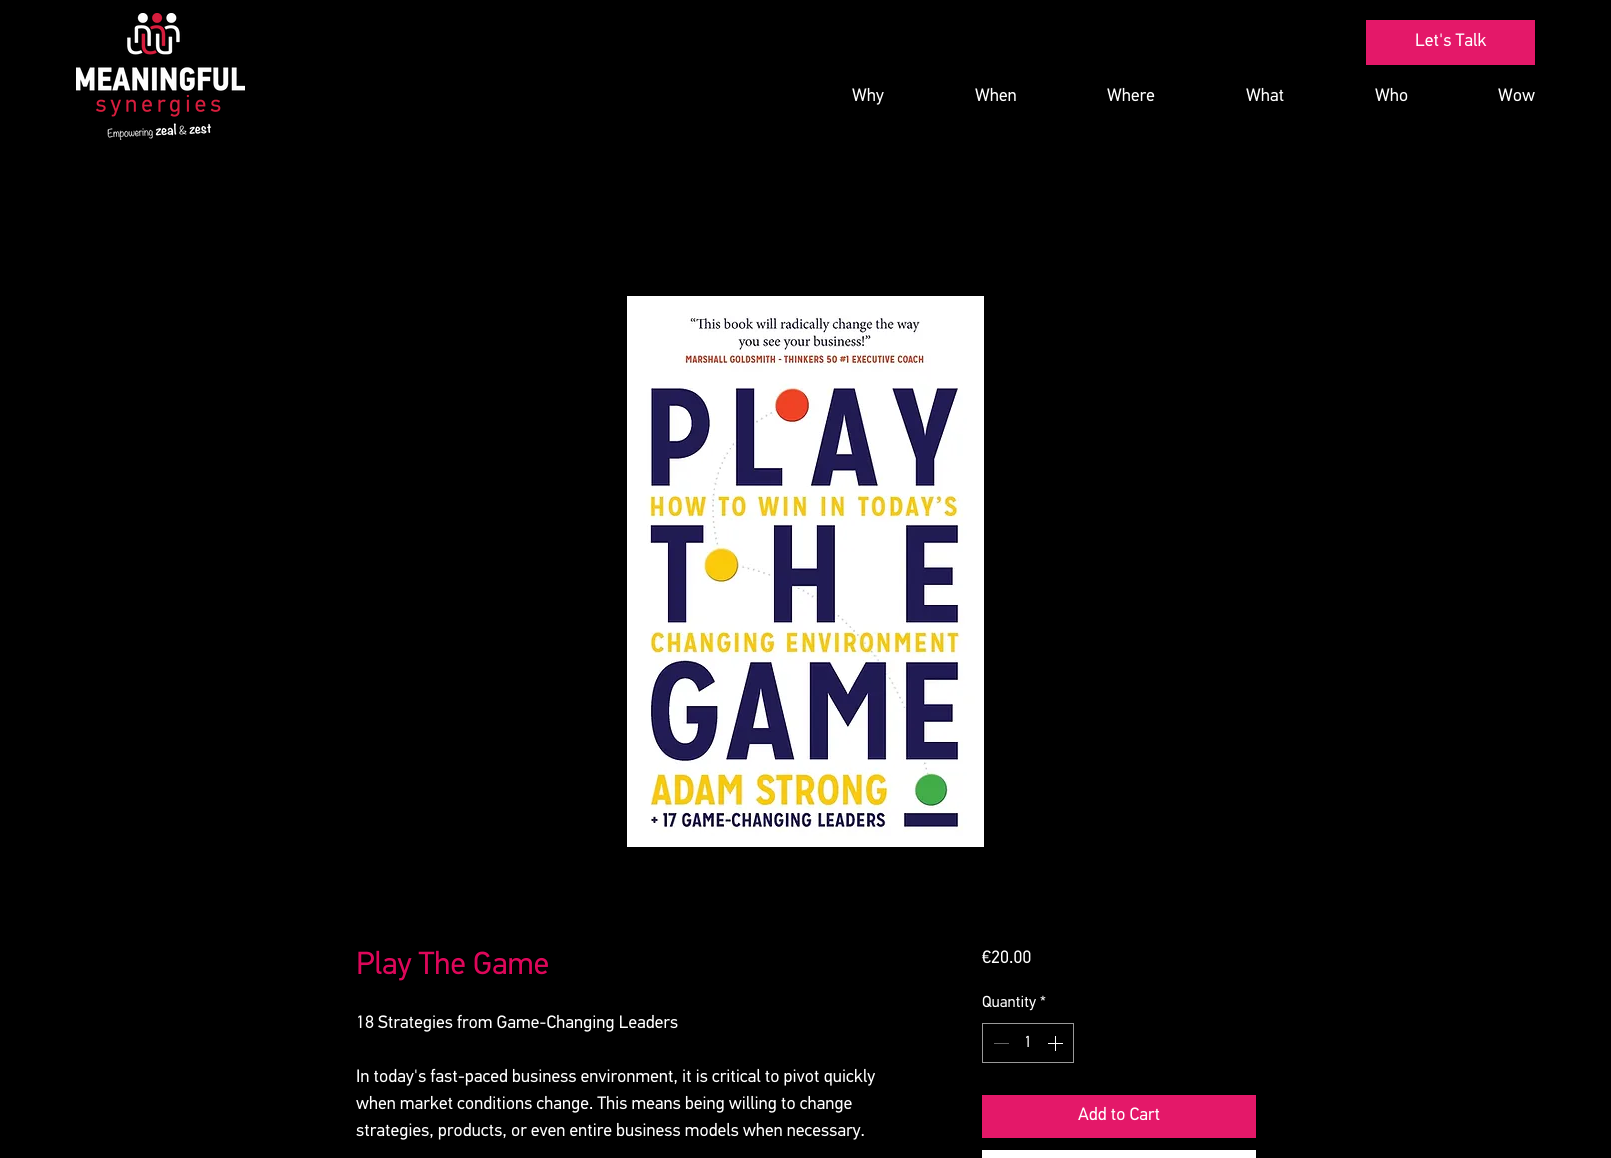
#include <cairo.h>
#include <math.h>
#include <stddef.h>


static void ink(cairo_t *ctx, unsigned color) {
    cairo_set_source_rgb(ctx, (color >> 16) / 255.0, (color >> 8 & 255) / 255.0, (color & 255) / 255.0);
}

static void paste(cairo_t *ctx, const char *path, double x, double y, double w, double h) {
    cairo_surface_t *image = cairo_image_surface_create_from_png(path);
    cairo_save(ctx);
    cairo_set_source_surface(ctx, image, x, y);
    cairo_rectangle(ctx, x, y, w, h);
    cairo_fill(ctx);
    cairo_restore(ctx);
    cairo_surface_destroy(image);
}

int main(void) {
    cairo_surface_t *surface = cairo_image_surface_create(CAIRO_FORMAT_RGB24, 1611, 1158);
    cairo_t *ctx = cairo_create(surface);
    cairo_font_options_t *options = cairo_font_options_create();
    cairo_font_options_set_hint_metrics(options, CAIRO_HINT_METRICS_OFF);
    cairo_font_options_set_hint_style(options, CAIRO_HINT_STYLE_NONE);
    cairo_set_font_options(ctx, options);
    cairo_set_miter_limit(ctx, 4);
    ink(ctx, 0x000000);
    cairo_paint(ctx);
    paste(ctx, "media/1.png", 76, 13, 169, 127);
    ink(ctx, 0xE41869);
    cairo_rectangle(ctx, 1366, 20, 169, 45);
    cairo_fill(ctx);
    paste(ctx, "media/2.png", 1416, 32, 71, 15);
    paste(ctx, "media/3.png", 852, 87, 32, 18);
    paste(ctx, "media/4.png", 975, 87, 41, 15);
    paste(ctx, "media/5.png", 1107, 87, 48, 15);
    paste(ctx, "media/6.png", 1246, 87, 38, 15);
    paste(ctx, "media/7.png", 1375, 87, 33, 15);
    paste(ctx, "media/8.png", 1498, 88, 37, 14);
    paste(ctx, "media/9.png", 627, 296, 357, 551);
    paste(ctx, "media/10.png", 358, 950, 190, 31);
    paste(ctx, "media/11.png", 358, 1014, 320, 18);
    paste(ctx, "media/12.png", 357, 1068, 519, 18);
    paste(ctx, "media/13.png", 356, 1095, 496, 18);
    paste(ctx, "media/14.png", 356, 1122, 508, 18);
    paste(ctx, "media/15.png", 982, 950, 49, 14);
    paste(ctx, "media/16.png", 982, 995, 54, 16);
    paste(ctx, "media/17.png", 1040, 995, 6, 6);
    cairo_rectangle(ctx, 982.5, 1023.5, 91, 39);
    ink(ctx, 0x999999);
    cairo_set_line_width(ctx, 1);
    cairo_stroke(ctx);
    ink(ctx, 0x646464);
    cairo_rectangle(ctx, 994, 1043, 15, 1);
    cairo_fill(ctx);
    paste(ctx, "media/18.png", 1026, 1035, 3, 12);
    paste(ctx, "media/19.png", 1048, 1036, 15, 15);
    ink(ctx, 0xE41869);
    cairo_rectangle(ctx, 982, 1095, 274, 43);
    cairo_fill(ctx);
    paste(ctx, "media/20.png", 1078, 1106, 82, 15);
    ink(ctx, 0xFFFFFF);
    cairo_rectangle(ctx, 982, 1150, 274, 8);
    cairo_fill(ctx);
    cairo_surface_write_to_png(surface, "image.png");
    cairo_font_options_destroy(options);
    cairo_destroy(ctx);
    cairo_surface_destroy(surface);
    return 0;
}
